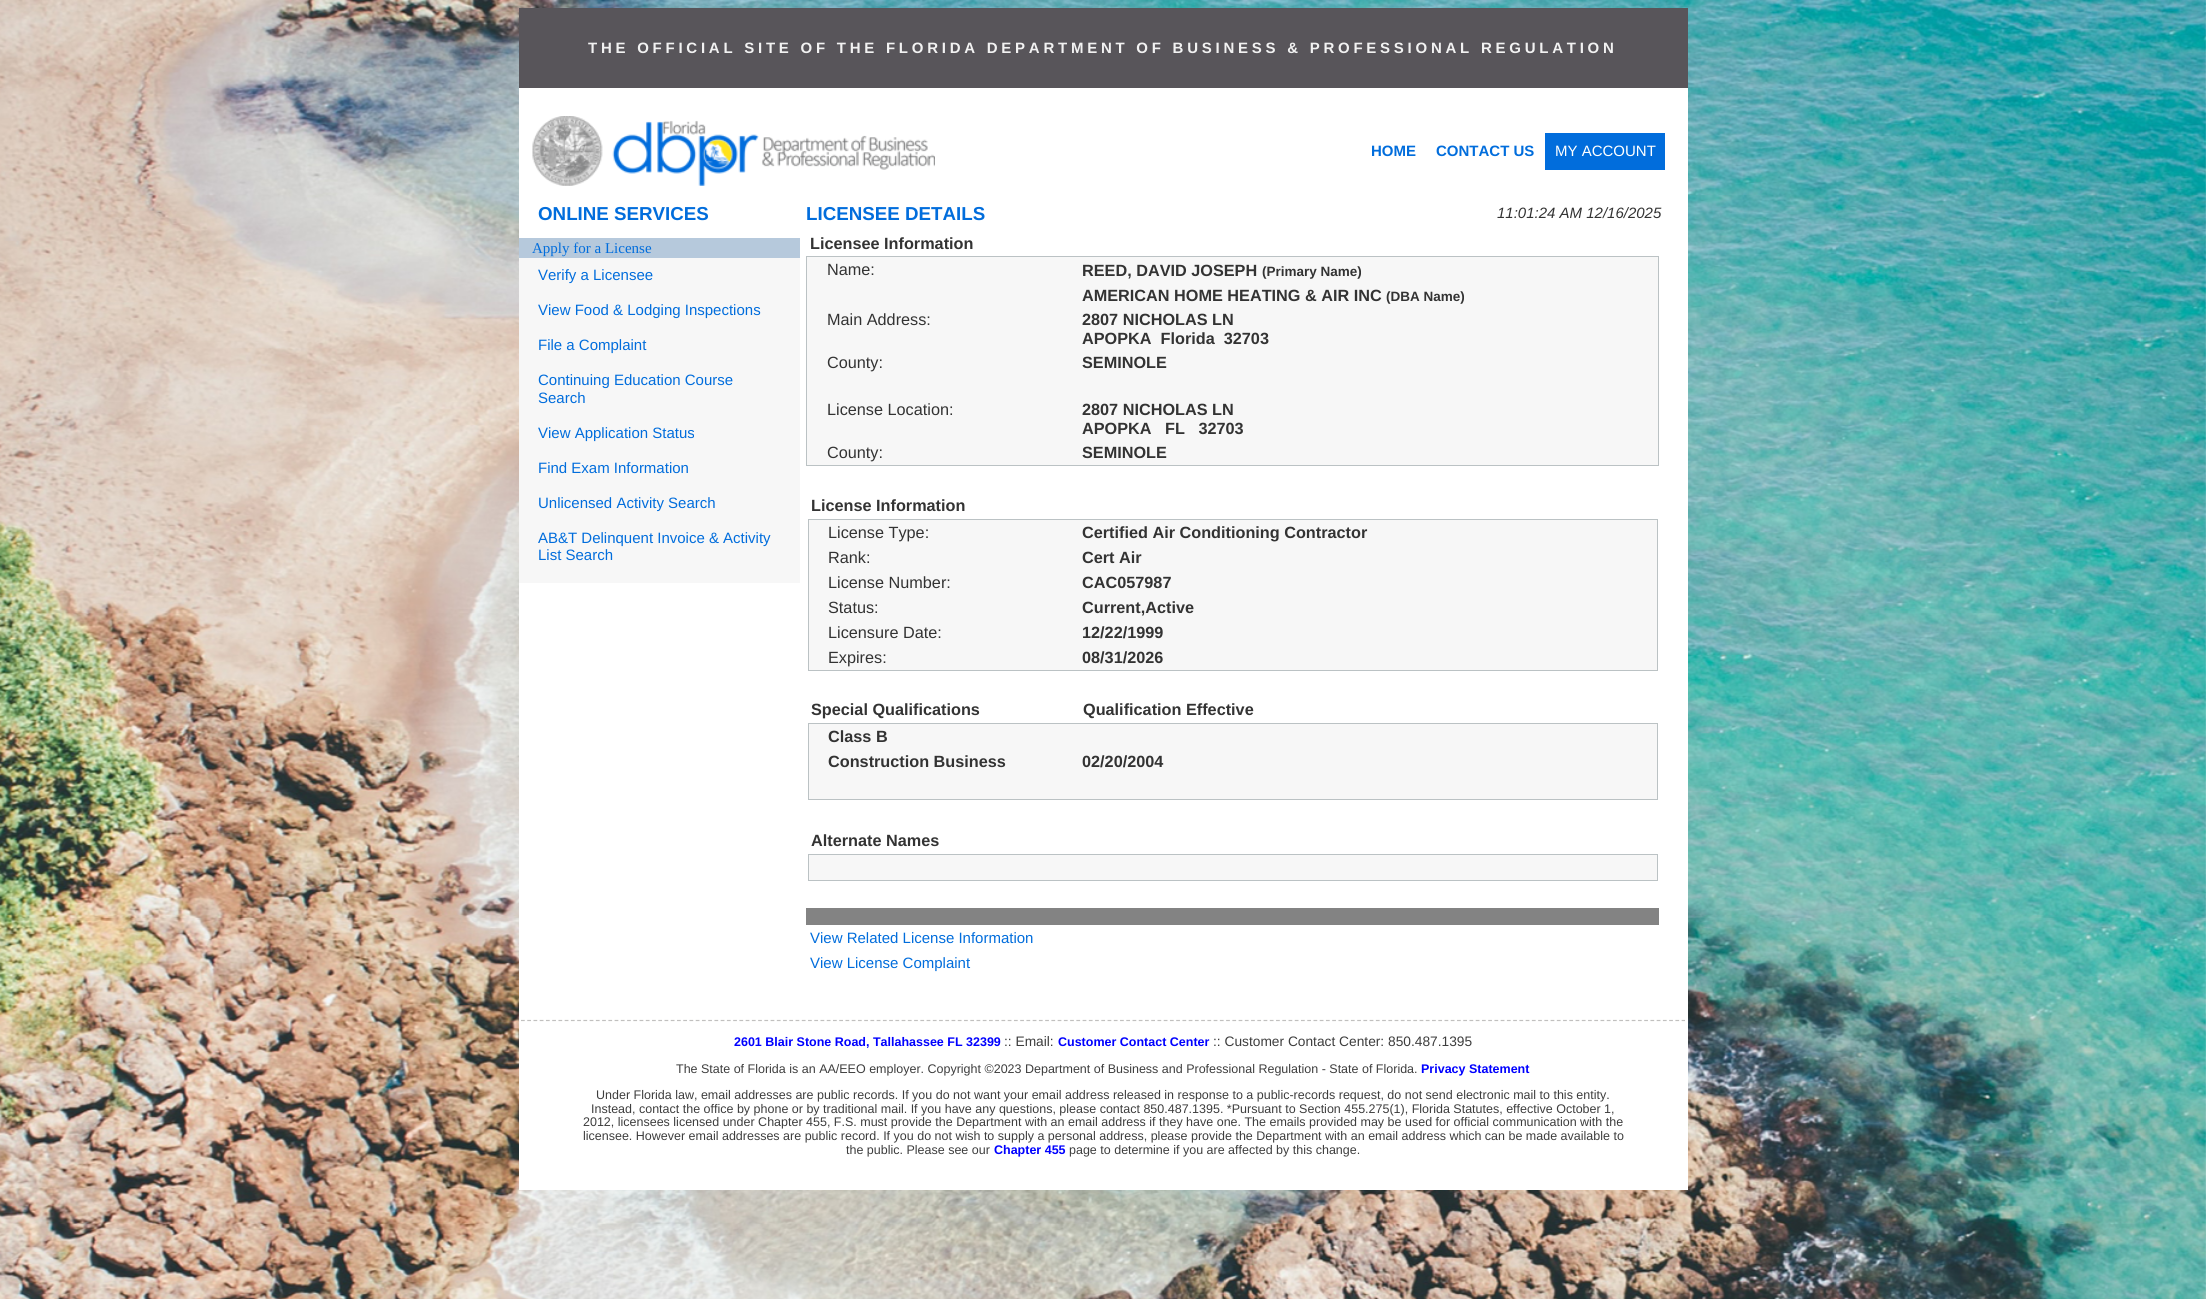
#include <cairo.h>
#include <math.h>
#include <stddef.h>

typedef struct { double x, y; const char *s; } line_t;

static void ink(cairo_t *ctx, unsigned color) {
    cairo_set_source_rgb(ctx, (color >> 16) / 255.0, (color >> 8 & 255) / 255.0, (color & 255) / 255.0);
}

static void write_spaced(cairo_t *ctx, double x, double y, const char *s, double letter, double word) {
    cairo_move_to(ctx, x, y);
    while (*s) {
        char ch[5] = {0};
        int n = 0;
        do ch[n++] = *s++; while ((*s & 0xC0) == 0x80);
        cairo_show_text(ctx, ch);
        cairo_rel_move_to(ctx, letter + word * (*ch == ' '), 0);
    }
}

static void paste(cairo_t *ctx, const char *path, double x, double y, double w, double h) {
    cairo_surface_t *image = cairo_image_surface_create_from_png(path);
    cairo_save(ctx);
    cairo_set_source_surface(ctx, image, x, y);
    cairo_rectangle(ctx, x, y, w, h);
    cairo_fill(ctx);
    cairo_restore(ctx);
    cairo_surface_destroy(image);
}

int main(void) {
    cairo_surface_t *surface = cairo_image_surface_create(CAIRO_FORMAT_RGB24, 2206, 1299);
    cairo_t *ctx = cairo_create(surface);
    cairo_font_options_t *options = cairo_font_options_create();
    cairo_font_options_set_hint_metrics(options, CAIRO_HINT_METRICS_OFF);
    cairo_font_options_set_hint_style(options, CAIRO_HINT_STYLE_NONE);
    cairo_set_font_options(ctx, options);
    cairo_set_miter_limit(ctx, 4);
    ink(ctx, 0xFFFFFF);
    cairo_paint(ctx);
    paste(ctx, "media/1.png", 0, 0, 2206, 1299);
    ink(ctx, 0xFFFFFF);
    cairo_rectangle(ctx, 519, 88, 1169, 1102);
    cairo_fill(ctx);
    ink(ctx, 0x58555A);
    cairo_rectangle(ctx, 519, 8, 1169, 80);
    cairo_fill(ctx);
    cairo_select_font_face(ctx, "Liberation Sans", CAIRO_FONT_SLANT_NORMAL, CAIRO_FONT_WEIGHT_BOLD);
    cairo_set_font_size(ctx, 15);
    ink(ctx, 0xF2F2F2);
    write_spaced(ctx, 588, 53, "THE OFFICIAL SITE OF THE FLORIDA DEPARTMENT OF BUSINESS & PROFESSIONAL REGULATION", 3.75, 0);
    paste(ctx, "media/2.png", 532, 116, 403, 70);
    ink(ctx, 0x016DDC);
    cairo_move_to(ctx, 1371, 156);
    cairo_show_text(ctx, "HOME");
    cairo_move_to(ctx, 1436, 156);
    cairo_show_text(ctx, "CONTACT US");
    cairo_rectangle(ctx, 1545, 133, 120, 37);
    cairo_fill(ctx);
    cairo_select_font_face(ctx, "Liberation Sans", CAIRO_FONT_SLANT_NORMAL, CAIRO_FONT_WEIGHT_NORMAL);
    ink(ctx, 0xFFFFFF);
    cairo_move_to(ctx, 1555, 156);
    cairo_show_text(ctx, "MY ACCOUNT");
    cairo_select_font_face(ctx, "Liberation Sans", CAIRO_FONT_SLANT_NORMAL, CAIRO_FONT_WEIGHT_BOLD);
    cairo_set_font_size(ctx, 18.75);
    ink(ctx, 0x016DDC);
    cairo_move_to(ctx, 538, 220);
    cairo_show_text(ctx, "ONLINE SERVICES");
    ink(ctx, 0xB6C9DC);
    cairo_rectangle(ctx, 519, 238, 281, 20);
    cairo_fill(ctx);
    cairo_select_font_face(ctx, "Liberation Serif", CAIRO_FONT_SLANT_NORMAL, CAIRO_FONT_WEIGHT_NORMAL);
    cairo_set_font_size(ctx, 15);
    ink(ctx, 0x016DDC);
    cairo_move_to(ctx, 532, 253);
    cairo_show_text(ctx, "Apply for a License");
    ink(ctx, 0xF7F7F7);
    cairo_rectangle(ctx, 519, 258, 281, 325);
    cairo_fill(ctx);
    cairo_select_font_face(ctx, "Liberation Sans", CAIRO_FONT_SLANT_NORMAL, CAIRO_FONT_WEIGHT_NORMAL);
    ink(ctx, 0x016DDC);
    {
        static const line_t items[] = {
            {538, 280, "Verify a Licensee"},
            {538, 315, "View Food & Lodging Inspections"},
            {538, 350, "File a Complaint"},
            {538, 385, "Continuing Education Course"},
            {538, 403, "Search"},
            {538, 438, "View Application Status"},
            {538, 473, "Find Exam Information"},
            {538, 508, "Unlicensed Activity Search"},
            {538, 543, "AB&T Delinquent Invoice & Activity"},
            {538, 560, "List Search"},
        };
        for (size_t i = 0; i < sizeof items / sizeof *items; i++) {
            cairo_move_to(ctx, items[i].x, items[i].y);
            cairo_show_text(ctx, items[i].s);
        }
    }
    cairo_select_font_face(ctx, "Liberation Sans", CAIRO_FONT_SLANT_NORMAL, CAIRO_FONT_WEIGHT_BOLD);
    cairo_set_font_size(ctx, 18.75);
    cairo_move_to(ctx, 806, 220);
    cairo_show_text(ctx, "LICENSEE DETAILS");
    cairo_select_font_face(ctx, "Liberation Sans", CAIRO_FONT_SLANT_ITALIC, CAIRO_FONT_WEIGHT_NORMAL);
    cairo_set_font_size(ctx, 15);
    ink(ctx, 0x333333);
    cairo_move_to(ctx, 1497, 218);
    cairo_show_text(ctx, "11:01:24 AM 12/16/2025");
    ink(ctx, 0x838383);
    cairo_rectangle(ctx, 806, 908, 853, 17);
    cairo_fill(ctx);
    cairo_select_font_face(ctx, "Liberation Sans", CAIRO_FONT_SLANT_NORMAL, CAIRO_FONT_WEIGHT_BOLD);
    cairo_set_font_size(ctx, 16.25);
    ink(ctx, 0x333333);
    cairo_move_to(ctx, 810, 249);
    cairo_show_text(ctx, "Licensee Information");
    ink(ctx, 0xF7F7F7);
    cairo_rectangle(ctx, 806.5, 256.5, 852, 209);
    cairo_fill_preserve(ctx);
    ink(ctx, 0xBBC2C4);
    cairo_set_line_width(ctx, 1);
    cairo_stroke(ctx);
    cairo_select_font_face(ctx, "Liberation Sans", CAIRO_FONT_SLANT_NORMAL, CAIRO_FONT_WEIGHT_NORMAL);
    ink(ctx, 0x333333);
    cairo_move_to(ctx, 827, 275);
    cairo_show_text(ctx, "Name:");
    cairo_select_font_face(ctx, "Liberation Sans", CAIRO_FONT_SLANT_NORMAL, CAIRO_FONT_WEIGHT_BOLD);
    cairo_move_to(ctx, 1082, 276);
    cairo_show_text(ctx, "REED, DAVID JOSEPH");
    cairo_set_font_size(ctx, 13.5);
    cairo_move_to(ctx, 1262, 276);
    cairo_show_text(ctx, "(Primary Name)");
    cairo_set_font_size(ctx, 16.25);
    cairo_move_to(ctx, 1082, 301);
    cairo_show_text(ctx, "AMERICAN HOME HEATING & AIR INC");
    cairo_set_font_size(ctx, 13.5);
    cairo_move_to(ctx, 1386, 301);
    cairo_show_text(ctx, "(DBA Name)");
    cairo_select_font_face(ctx, "Liberation Sans", CAIRO_FONT_SLANT_NORMAL, CAIRO_FONT_WEIGHT_NORMAL);
    cairo_set_font_size(ctx, 16.25);
    cairo_move_to(ctx, 827, 325);
    cairo_show_text(ctx, "Main Address:");
    cairo_select_font_face(ctx, "Liberation Sans", CAIRO_FONT_SLANT_NORMAL, CAIRO_FONT_WEIGHT_BOLD);
    cairo_move_to(ctx, 1082, 325);
    cairo_show_text(ctx, "2807 NICHOLAS LN");
    cairo_move_to(ctx, 1082, 344);
    cairo_show_text(ctx, "APOPKA  Florida  32703");
    cairo_select_font_face(ctx, "Liberation Sans", CAIRO_FONT_SLANT_NORMAL, CAIRO_FONT_WEIGHT_NORMAL);
    cairo_move_to(ctx, 827, 368);
    cairo_show_text(ctx, "County:");
    cairo_select_font_face(ctx, "Liberation Sans", CAIRO_FONT_SLANT_NORMAL, CAIRO_FONT_WEIGHT_BOLD);
    cairo_move_to(ctx, 1082, 368);
    cairo_show_text(ctx, "SEMINOLE");
    cairo_select_font_face(ctx, "Liberation Sans", CAIRO_FONT_SLANT_NORMAL, CAIRO_FONT_WEIGHT_NORMAL);
    cairo_move_to(ctx, 827, 415);
    cairo_show_text(ctx, "License Location:");
    cairo_select_font_face(ctx, "Liberation Sans", CAIRO_FONT_SLANT_NORMAL, CAIRO_FONT_WEIGHT_BOLD);
    cairo_move_to(ctx, 1082, 415);
    cairo_show_text(ctx, "2807 NICHOLAS LN");
    cairo_move_to(ctx, 1082, 434);
    cairo_show_text(ctx, "APOPKA   FL   32703");
    cairo_select_font_face(ctx, "Liberation Sans", CAIRO_FONT_SLANT_NORMAL, CAIRO_FONT_WEIGHT_NORMAL);
    cairo_move_to(ctx, 827, 458);
    cairo_show_text(ctx, "County:");
    cairo_select_font_face(ctx, "Liberation Sans", CAIRO_FONT_SLANT_NORMAL, CAIRO_FONT_WEIGHT_BOLD);
    cairo_move_to(ctx, 1082, 458);
    cairo_show_text(ctx, "SEMINOLE");
    cairo_move_to(ctx, 811, 511);
    cairo_show_text(ctx, "License Information");
    ink(ctx, 0xF7F7F7);
    cairo_rectangle(ctx, 808.5, 519.5, 849, 151);
    cairo_fill_preserve(ctx);
    ink(ctx, 0xBBC2C4);
    cairo_stroke(ctx);
    cairo_select_font_face(ctx, "Liberation Sans", CAIRO_FONT_SLANT_NORMAL, CAIRO_FONT_WEIGHT_NORMAL);
    ink(ctx, 0x333333);
    cairo_move_to(ctx, 828, 538);
    cairo_show_text(ctx, "License Type:");
    cairo_select_font_face(ctx, "Liberation Sans", CAIRO_FONT_SLANT_NORMAL, CAIRO_FONT_WEIGHT_BOLD);
    cairo_move_to(ctx, 1082, 538);
    cairo_show_text(ctx, "Certified Air Conditioning Contractor");
    cairo_select_font_face(ctx, "Liberation Sans", CAIRO_FONT_SLANT_NORMAL, CAIRO_FONT_WEIGHT_NORMAL);
    cairo_move_to(ctx, 828, 563);
    cairo_show_text(ctx, "Rank:");
    cairo_select_font_face(ctx, "Liberation Sans", CAIRO_FONT_SLANT_NORMAL, CAIRO_FONT_WEIGHT_BOLD);
    cairo_move_to(ctx, 1082, 563);
    cairo_show_text(ctx, "Cert Air");
    cairo_select_font_face(ctx, "Liberation Sans", CAIRO_FONT_SLANT_NORMAL, CAIRO_FONT_WEIGHT_NORMAL);
    cairo_move_to(ctx, 828, 588);
    cairo_show_text(ctx, "License Number:");
    cairo_select_font_face(ctx, "Liberation Sans", CAIRO_FONT_SLANT_NORMAL, CAIRO_FONT_WEIGHT_BOLD);
    cairo_move_to(ctx, 1082, 588);
    cairo_show_text(ctx, "CAC057987");
    cairo_select_font_face(ctx, "Liberation Sans", CAIRO_FONT_SLANT_NORMAL, CAIRO_FONT_WEIGHT_NORMAL);
    cairo_move_to(ctx, 828, 613);
    cairo_show_text(ctx, "Status:");
    cairo_select_font_face(ctx, "Liberation Sans", CAIRO_FONT_SLANT_NORMAL, CAIRO_FONT_WEIGHT_BOLD);
    cairo_move_to(ctx, 1082, 613);
    cairo_show_text(ctx, "Current,Active");
    cairo_select_font_face(ctx, "Liberation Sans", CAIRO_FONT_SLANT_NORMAL, CAIRO_FONT_WEIGHT_NORMAL);
    cairo_move_to(ctx, 828, 638);
    cairo_show_text(ctx, "Licensure Date:");
    cairo_select_font_face(ctx, "Liberation Sans", CAIRO_FONT_SLANT_NORMAL, CAIRO_FONT_WEIGHT_BOLD);
    cairo_move_to(ctx, 1082, 638);
    cairo_show_text(ctx, "12/22/1999");
    cairo_select_font_face(ctx, "Liberation Sans", CAIRO_FONT_SLANT_NORMAL, CAIRO_FONT_WEIGHT_NORMAL);
    cairo_move_to(ctx, 828, 663);
    cairo_show_text(ctx, "Expires:");
    cairo_select_font_face(ctx, "Liberation Sans", CAIRO_FONT_SLANT_NORMAL, CAIRO_FONT_WEIGHT_BOLD);
    {
        static const line_t items[] = {
            {1082, 663, "08/31/2026"},
            {811, 715, "Special Qualifications"},
            {1083, 715, "Qualification Effective"},
        };
        for (size_t i = 0; i < sizeof items / sizeof *items; i++) {
            cairo_move_to(ctx, items[i].x, items[i].y);
            cairo_show_text(ctx, items[i].s);
        }
    }
    ink(ctx, 0xF7F7F7);
    cairo_rectangle(ctx, 808.5, 723.5, 849, 76);
    cairo_fill_preserve(ctx);
    ink(ctx, 0xBBC2C4);
    cairo_stroke(ctx);
    ink(ctx, 0x333333);
    {
        static const line_t items[] = {
            {828, 742, "Class B"},
            {828, 767, "Construction Business"},
            {1082, 767, "02/20/2004"},
            {811, 846, "Alternate Names"},
        };
        for (size_t i = 0; i < sizeof items / sizeof *items; i++) {
            cairo_move_to(ctx, items[i].x, items[i].y);
            cairo_show_text(ctx, items[i].s);
        }
    }
    ink(ctx, 0xF7F7F7);
    cairo_rectangle(ctx, 808.5, 854.5, 849, 26);
    cairo_fill_preserve(ctx);
    ink(ctx, 0xBBC2C4);
    cairo_stroke(ctx);
    cairo_select_font_face(ctx, "Liberation Sans", CAIRO_FONT_SLANT_NORMAL, CAIRO_FONT_WEIGHT_NORMAL);
    cairo_set_font_size(ctx, 15);
    ink(ctx, 0x016DDC);
    cairo_move_to(ctx, 810, 943);
    cairo_show_text(ctx, "View Related License Information");
    cairo_move_to(ctx, 810, 968);
    cairo_show_text(ctx, "View License Complaint");
    cairo_new_path(ctx);
    cairo_move_to(ctx, 521, 1020.5);
    cairo_line_to(ctx, 1685, 1020.5);
    ink(ctx, 0xC1C0BF);
    cairo_set_line_width(ctx, 1.2);
    cairo_set_dash(ctx, (double[]){3.75, 2.49}, 2, 0);
    cairo_stroke(ctx);
    cairo_select_font_face(ctx, "Liberation Sans", CAIRO_FONT_SLANT_NORMAL, CAIRO_FONT_WEIGHT_BOLD);
    cairo_set_font_size(ctx, 12.5);
    ink(ctx, 0x0000FF);
    cairo_move_to(ctx, 734, 1046);
    cairo_show_text(ctx, "2601 Blair Stone Road, Tallahassee FL 32399");
    cairo_select_font_face(ctx, "Liberation Sans", CAIRO_FONT_SLANT_NORMAL, CAIRO_FONT_WEIGHT_NORMAL);
    cairo_set_font_size(ctx, 13.75);
    ink(ctx, 0x3D3D3D);
    cairo_move_to(ctx, 1004, 1046);
    cairo_show_text(ctx, ":: Email:");
    cairo_select_font_face(ctx, "Liberation Sans", CAIRO_FONT_SLANT_NORMAL, CAIRO_FONT_WEIGHT_BOLD);
    cairo_set_font_size(ctx, 12.5);
    ink(ctx, 0x0000FF);
    cairo_move_to(ctx, 1058, 1046);
    cairo_show_text(ctx, "Customer Contact Center");
    cairo_select_font_face(ctx, "Liberation Sans", CAIRO_FONT_SLANT_NORMAL, CAIRO_FONT_WEIGHT_NORMAL);
    cairo_set_font_size(ctx, 13.75);
    ink(ctx, 0x3D3D3D);
    cairo_move_to(ctx, 1213, 1046);
    cairo_show_text(ctx, ":: Customer Contact Center: 850.487.1395");
    cairo_set_font_size(ctx, 12.5);
    cairo_move_to(ctx, 676, 1073);
    cairo_show_text(ctx, "The State of Florida is an AA/EEO employer. Copyright ©2023 Department of Business and Professional Regulation - State of Florida.");
    cairo_select_font_face(ctx, "Liberation Sans", CAIRO_FONT_SLANT_NORMAL, CAIRO_FONT_WEIGHT_BOLD);
    ink(ctx, 0x0000FF);
    cairo_move_to(ctx, 1421, 1073);
    cairo_show_text(ctx, "Privacy Statement");
    cairo_select_font_face(ctx, "Liberation Sans", CAIRO_FONT_SLANT_NORMAL, CAIRO_FONT_WEIGHT_NORMAL);
    ink(ctx, 0x3D3D3D);
    {
        static const line_t items[] = {
            {596, 1099, "Under Florida law, email addresses are public records. If you do not want your email address released in response to a public-records request, do not send electronic mail to this entity."},
            {591, 1113, "Instead, contact the office by phone or by traditional mail. If you have any questions, please contact 850.487.1395. *Pursuant to Section 455.275(1), Florida Statutes, effective October 1,"},
            {583, 1126, "2012, licensees licensed under Chapter 455, F.S. must provide the Department with an email address if they have one. The emails provided may be used for official communication with the"},
            {583, 1140, "licensee. However email addresses are public record. If you do not wish to supply a personal address, please provide the Department with an email address which can be made available to"},
            {846, 1154, "the public. Please see our"},
        };
        for (size_t i = 0; i < sizeof items / sizeof *items; i++) {
            cairo_move_to(ctx, items[i].x, items[i].y);
            cairo_show_text(ctx, items[i].s);
        }
    }
    cairo_select_font_face(ctx, "Liberation Sans", CAIRO_FONT_SLANT_NORMAL, CAIRO_FONT_WEIGHT_BOLD);
    ink(ctx, 0x0000FF);
    cairo_move_to(ctx, 994, 1154);
    cairo_show_text(ctx, "Chapter 455");
    cairo_select_font_face(ctx, "Liberation Sans", CAIRO_FONT_SLANT_NORMAL, CAIRO_FONT_WEIGHT_NORMAL);
    ink(ctx, 0x3D3D3D);
    cairo_move_to(ctx, 1069, 1154);
    cairo_show_text(ctx, "page to determine if you are affected by this change.");
    cairo_surface_write_to_png(surface, "image.png");
    cairo_font_options_destroy(options);
    cairo_destroy(ctx);
    cairo_surface_destroy(surface);
    return 0;
}
